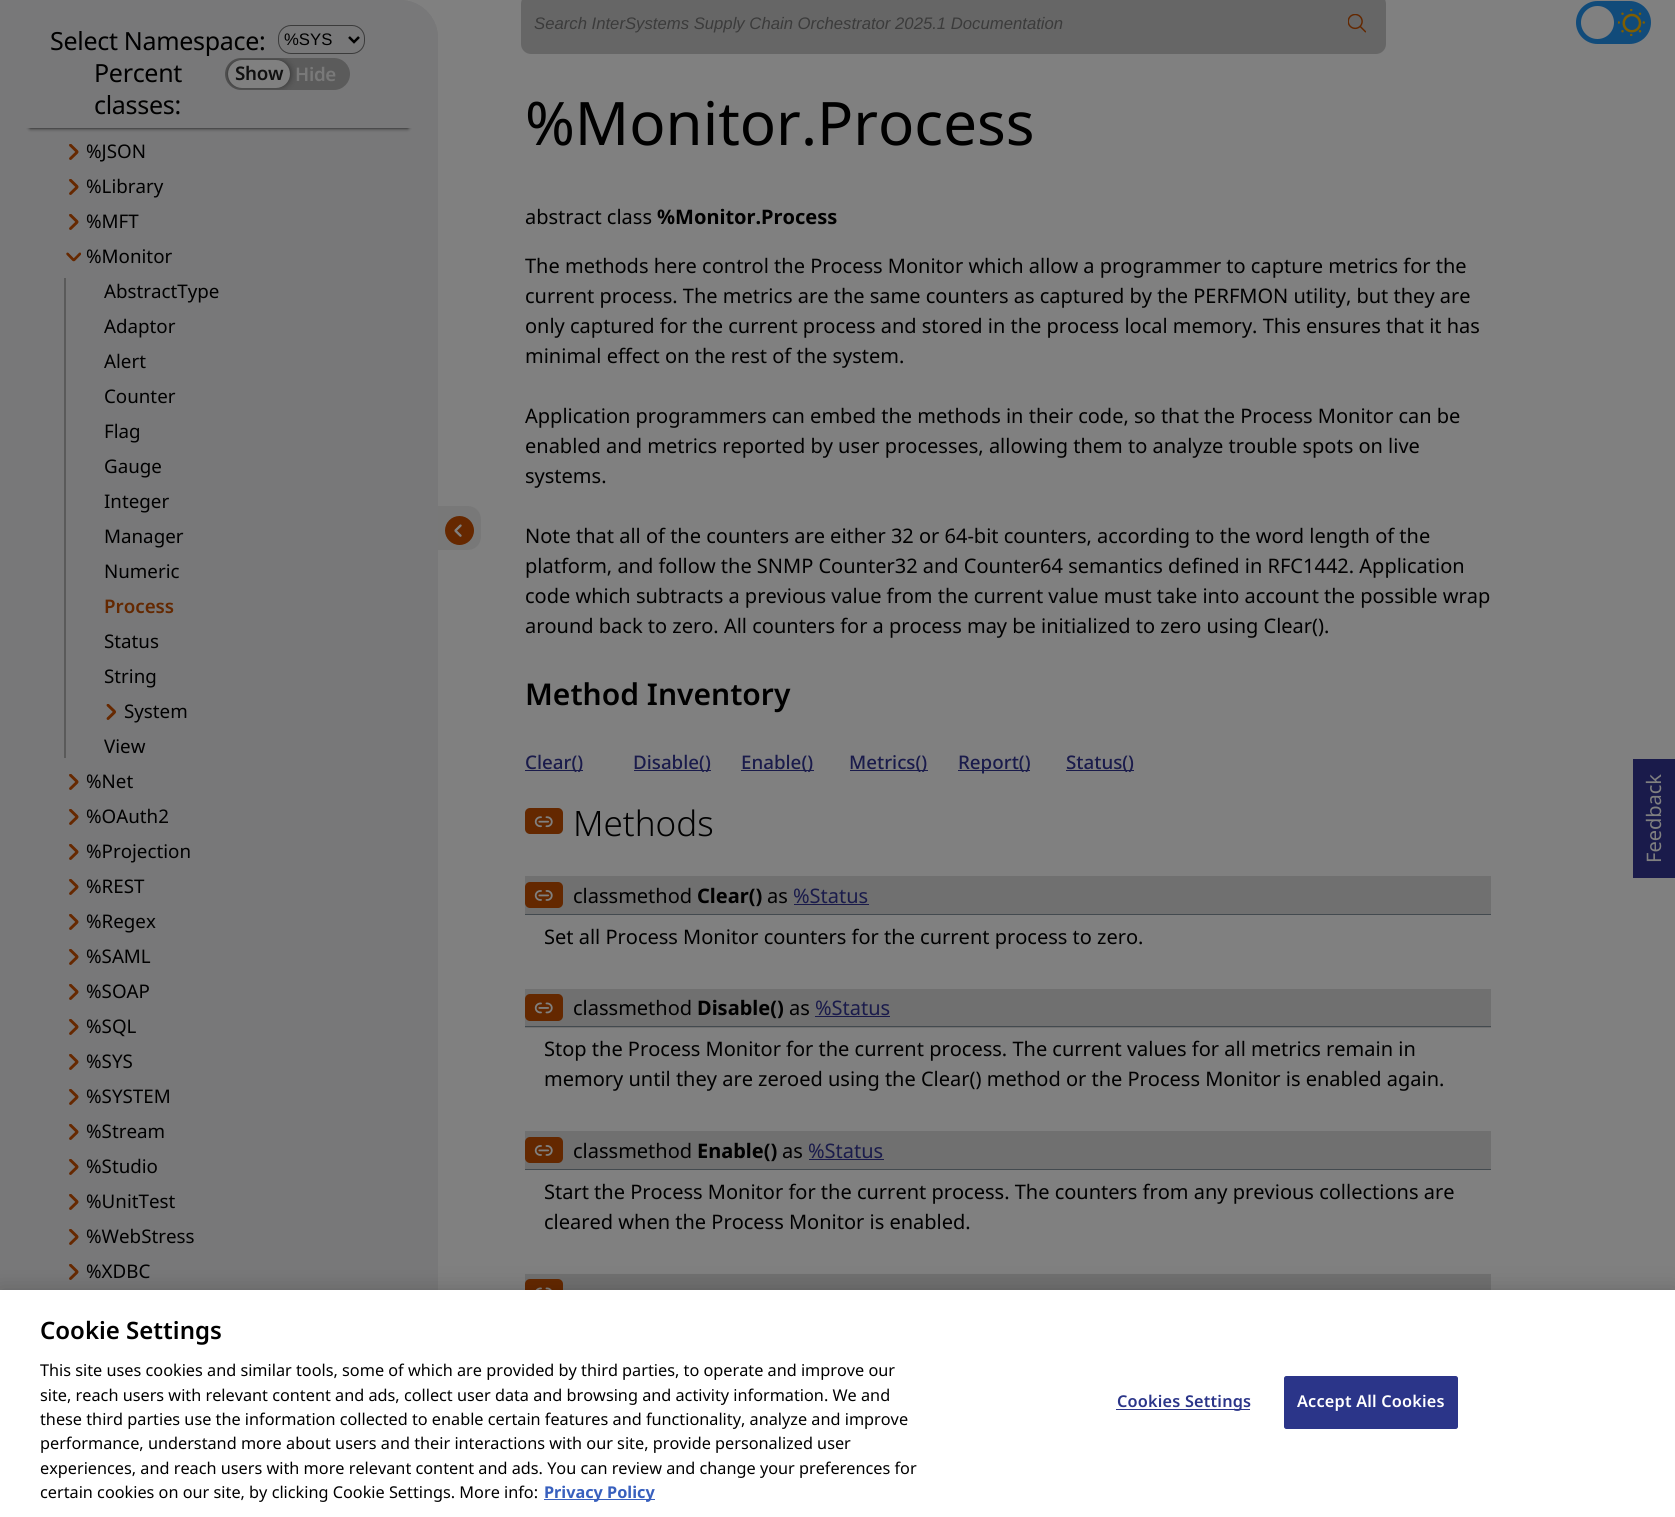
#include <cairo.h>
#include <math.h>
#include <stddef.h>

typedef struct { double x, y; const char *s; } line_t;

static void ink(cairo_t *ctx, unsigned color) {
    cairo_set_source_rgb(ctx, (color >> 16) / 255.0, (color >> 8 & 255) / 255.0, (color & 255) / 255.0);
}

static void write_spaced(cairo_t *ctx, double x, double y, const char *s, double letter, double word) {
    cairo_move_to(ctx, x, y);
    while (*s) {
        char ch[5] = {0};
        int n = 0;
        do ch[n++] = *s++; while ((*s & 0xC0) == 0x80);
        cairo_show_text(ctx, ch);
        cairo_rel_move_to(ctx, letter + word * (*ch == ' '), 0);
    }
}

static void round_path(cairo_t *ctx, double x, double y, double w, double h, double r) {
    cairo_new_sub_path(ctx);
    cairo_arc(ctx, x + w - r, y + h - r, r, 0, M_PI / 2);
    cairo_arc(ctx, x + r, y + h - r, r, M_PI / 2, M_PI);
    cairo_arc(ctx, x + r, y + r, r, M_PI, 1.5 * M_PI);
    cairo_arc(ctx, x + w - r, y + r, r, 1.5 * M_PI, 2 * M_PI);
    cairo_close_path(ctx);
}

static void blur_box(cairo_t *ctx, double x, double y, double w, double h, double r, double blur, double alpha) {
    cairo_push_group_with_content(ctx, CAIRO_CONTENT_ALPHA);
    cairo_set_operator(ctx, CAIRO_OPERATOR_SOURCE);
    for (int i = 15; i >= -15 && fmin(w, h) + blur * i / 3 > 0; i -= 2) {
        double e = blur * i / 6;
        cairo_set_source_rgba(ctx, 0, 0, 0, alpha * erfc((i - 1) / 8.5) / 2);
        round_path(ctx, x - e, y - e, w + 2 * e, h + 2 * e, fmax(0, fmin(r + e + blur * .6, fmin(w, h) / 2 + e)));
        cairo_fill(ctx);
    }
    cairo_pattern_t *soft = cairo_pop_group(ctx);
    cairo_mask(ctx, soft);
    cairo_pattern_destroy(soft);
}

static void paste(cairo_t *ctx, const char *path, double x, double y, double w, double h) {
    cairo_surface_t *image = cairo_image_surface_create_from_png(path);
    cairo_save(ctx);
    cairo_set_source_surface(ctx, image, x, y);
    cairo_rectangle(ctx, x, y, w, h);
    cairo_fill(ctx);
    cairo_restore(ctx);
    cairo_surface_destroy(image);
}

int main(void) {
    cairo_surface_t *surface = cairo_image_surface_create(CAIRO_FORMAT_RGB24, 1675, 1517);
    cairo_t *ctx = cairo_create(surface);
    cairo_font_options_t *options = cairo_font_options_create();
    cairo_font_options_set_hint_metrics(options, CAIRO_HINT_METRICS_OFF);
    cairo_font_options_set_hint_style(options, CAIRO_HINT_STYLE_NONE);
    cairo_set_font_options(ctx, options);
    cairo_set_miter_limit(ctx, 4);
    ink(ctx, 0x808080);
    cairo_paint(ctx);
    ink(ctx, 0x666666);
    round_path(ctx, 521, -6, 865, 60, 10);
    cairo_fill(ctx);
    cairo_select_font_face(ctx, "Liberation Sans", CAIRO_FONT_SLANT_ITALIC, CAIRO_FONT_WEIGHT_NORMAL);
    cairo_set_font_size(ctx, 16.7);
    ink(ctx, 0x3B3B3B);
    cairo_move_to(ctx, 534, 29);
    cairo_show_text(ctx, "Search InterSystems Supply Chain Orchestrator 2025.1 Documentation");
    paste(ctx, "media/1.png", 1348, 14, 18, 19);
    ink(ctx, 0x114B7A);
    round_path(ctx, 1576, 1, 75, 43, 21.5);
    cairo_fill(ctx);
    ink(ctx, 0x808080);
    cairo_arc(ctx, 1597.5, 22.5, 16.5, 0, 2 * M_PI);
    cairo_fill(ctx);
    paste(ctx, "media/2.png", 1618, 9, 27, 27);
    ink(ctx, 0x787879);
    cairo_new_path(ctx);
    cairo_move_to(ctx, 0, 0);
    cairo_line_to(ctx, 400, 0);
    cairo_curve_to(ctx, 421, 0, 438, 17, 438, 38);
    cairo_line_to(ctx, 438, 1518);
    cairo_line_to(ctx, 0, 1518);
    cairo_close_path(ctx);
    cairo_fill(ctx);
    ink(ctx, 0x0B0B0B);
    blur_box(ctx, 30, 60, 378, 68, 0, 2, 1);
    ink(ctx, 0x787879);
    cairo_new_path(ctx);
    cairo_move_to(ctx, 0, 0);
    cairo_line_to(ctx, 400, 0);
    cairo_curve_to(ctx, 421, 0, 438, 17, 438, 38);
    cairo_line_to(ctx, 438, 128);
    cairo_line_to(ctx, 0, 128);
    cairo_close_path(ctx);
    cairo_fill(ctx);
    cairo_select_font_face(ctx, "Noto Sans", CAIRO_FONT_SLANT_NORMAL, CAIRO_FONT_WEIGHT_NORMAL);
    cairo_set_font_size(ctx, 25);
    ink(ctx, 0x000000);
    write_spaced(ctx, 50, 50, "Select Namespace:", -0.3, 0);
    round_path(ctx, 278.5, 25.5, 86, 28, 12.5);
    ink(ctx, 0x3B3B3B);
    cairo_set_line_width(ctx, 1);
    cairo_stroke(ctx);
    cairo_new_path(ctx);
    cairo_move_to(ctx, 349, 37);
    cairo_line_to(ctx, 354, 42);
    cairo_line_to(ctx, 359, 37);
    ink(ctx, 0x000000);
    cairo_set_line_width(ctx, 2.5);
    cairo_stroke(ctx);
    cairo_select_font_face(ctx, "Liberation Sans", CAIRO_FONT_SLANT_NORMAL, CAIRO_FONT_WEIGHT_NORMAL);
    cairo_set_font_size(ctx, 16.7);
    cairo_move_to(ctx, 284, 45);
    cairo_show_text(ctx, "%SYS");
    cairo_select_font_face(ctx, "Noto Sans", CAIRO_FONT_SLANT_NORMAL, CAIRO_FONT_WEIGHT_NORMAL);
    cairo_set_font_size(ctx, 25);
    write_spaced(ctx, 94, 82, "Percent", -0.3, 0);
    ink(ctx, 0x5B5B5B);
    round_path(ctx, 225, 58, 125, 32, 16);
    cairo_fill(ctx);
    cairo_save(ctx);
    round_path(ctx, 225, 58, 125, 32, 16);
    cairo_clip(ctx);
    ink(ctx, 0x090909);
    blur_box(ctx, 230, 63, 58, 22, 11, 4, 1);
    cairo_restore(ctx);
    ink(ctx, 0x808080);
    round_path(ctx, 228, 60, 62, 28, 14);
    cairo_fill(ctx);
    cairo_select_font_face(ctx, "Noto Sans SemiBold", CAIRO_FONT_SLANT_NORMAL, CAIRO_FONT_WEIGHT_NORMAL);
    cairo_set_font_size(ctx, 18.75);
    ink(ctx, 0x111111);
    write_spaced(ctx, 235, 80, "Show", -0.3, 0);
    ink(ctx, 0x797979);
    write_spaced(ctx, 295, 81, "Hide", -0.3, 0);
    cairo_select_font_face(ctx, "Noto Sans", CAIRO_FONT_SLANT_NORMAL, CAIRO_FONT_WEIGHT_NORMAL);
    cairo_set_font_size(ctx, 25);
    ink(ctx, 0x000000);
    write_spaced(ctx, 94, 114, "classes:", -0.3, 0);
    paste(ctx, "media/3.png", 69, 144, 10, 16);
    cairo_set_font_size(ctx, 18.75);
    cairo_move_to(ctx, 86, 158);
    cairo_show_text(ctx, "%JSON");
    paste(ctx, "media/3.png", 69, 179, 10, 16);
    cairo_move_to(ctx, 86, 193);
    cairo_show_text(ctx, "%Library");
    paste(ctx, "media/3.png", 69, 214, 10, 16);
    cairo_move_to(ctx, 86, 228);
    cairo_show_text(ctx, "%MFT");
    paste(ctx, "media/4.png", 66, 252, 15, 10);
    cairo_move_to(ctx, 86, 263);
    cairo_show_text(ctx, "%Monitor");
    ink(ctx, 0x5A5A5A);
    cairo_rectangle(ctx, 64, 278, 2, 480);
    cairo_fill(ctx);
    ink(ctx, 0x000000);
    {
        static const line_t items[] = {
            {104, 298, "AbstractType"},
            {104, 333, "Adaptor"},
            {104, 368, "Alert"},
            {104, 403, "Counter"},
            {104, 438, "Flag"},
            {104, 473, "Gauge"},
            {104, 508, "Integer"},
            {104, 543, "Manager"},
            {104, 578, "Numeric"},
        };
        for (size_t i = 0; i < sizeof items / sizeof *items; i++) {
            cairo_move_to(ctx, items[i].x, items[i].y);
            cairo_show_text(ctx, items[i].s);
        }
    }
    cairo_select_font_face(ctx, "Noto Sans SemiBold", CAIRO_FONT_SLANT_NORMAL, CAIRO_FONT_WEIGHT_NORMAL);
    ink(ctx, 0x642800);
    cairo_move_to(ctx, 104, 613);
    cairo_show_text(ctx, "Process");
    cairo_select_font_face(ctx, "Noto Sans", CAIRO_FONT_SLANT_NORMAL, CAIRO_FONT_WEIGHT_NORMAL);
    ink(ctx, 0x000000);
    cairo_move_to(ctx, 104, 648);
    cairo_show_text(ctx, "Status");
    cairo_move_to(ctx, 104, 683);
    cairo_show_text(ctx, "String");
    paste(ctx, "media/5.png", 106, 704, 10, 16);
    cairo_move_to(ctx, 124, 718);
    cairo_show_text(ctx, "System");
    cairo_move_to(ctx, 104, 753);
    cairo_show_text(ctx, "View");
    paste(ctx, "media/3.png", 69, 774, 10, 16);
    cairo_move_to(ctx, 86, 788);
    cairo_show_text(ctx, "%Net");
    paste(ctx, "media/3.png", 69, 809, 10, 16);
    cairo_move_to(ctx, 86, 823);
    cairo_show_text(ctx, "%OAuth2");
    paste(ctx, "media/3.png", 69, 844, 10, 16);
    cairo_move_to(ctx, 86, 858);
    cairo_show_text(ctx, "%Projection");
    paste(ctx, "media/3.png", 69, 879, 10, 16);
    cairo_move_to(ctx, 86, 893);
    cairo_show_text(ctx, "%REST");
    paste(ctx, "media/3.png", 69, 914, 10, 16);
    cairo_move_to(ctx, 86, 928);
    cairo_show_text(ctx, "%Regex");
    paste(ctx, "media/3.png", 69, 949, 10, 16);
    cairo_move_to(ctx, 86, 963);
    cairo_show_text(ctx, "%SAML");
    paste(ctx, "media/3.png", 69, 984, 10, 16);
    cairo_move_to(ctx, 86, 998);
    cairo_show_text(ctx, "%SOAP");
    paste(ctx, "media/3.png", 69, 1019, 10, 16);
    cairo_move_to(ctx, 86, 1033);
    cairo_show_text(ctx, "%SQL");
    paste(ctx, "media/3.png", 69, 1054, 10, 16);
    cairo_move_to(ctx, 86, 1068);
    cairo_show_text(ctx, "%SYS");
    paste(ctx, "media/3.png", 69, 1089, 10, 16);
    cairo_move_to(ctx, 86, 1103);
    cairo_show_text(ctx, "%SYSTEM");
    paste(ctx, "media/3.png", 69, 1124, 10, 16);
    cairo_move_to(ctx, 86, 1138);
    cairo_show_text(ctx, "%Stream");
    paste(ctx, "media/3.png", 69, 1159, 10, 16);
    cairo_move_to(ctx, 86, 1173);
    cairo_show_text(ctx, "%Studio");
    paste(ctx, "media/3.png", 69, 1194, 10, 16);
    cairo_move_to(ctx, 86, 1208);
    cairo_show_text(ctx, "%UnitTest");
    paste(ctx, "media/3.png", 69, 1229, 10, 16);
    cairo_move_to(ctx, 86, 1243);
    cairo_show_text(ctx, "%WebStress");
    paste(ctx, "media/3.png", 69, 1264, 10, 16);
    cairo_move_to(ctx, 86, 1278);
    cairo_show_text(ctx, "%XDBC");
    ink(ctx, 0x787878);
    cairo_new_path(ctx);
    cairo_move_to(ctx, 438, 506);
    cairo_line_to(ctx, 468, 506);
    cairo_curve_to(ctx, 475, 506, 481, 512, 481, 519);
    cairo_line_to(ctx, 481, 537);
    cairo_curve_to(ctx, 481, 544, 475, 550, 468, 550);
    cairo_line_to(ctx, 438, 550);
    cairo_close_path(ctx);
    cairo_fill(ctx);
    paste(ctx, "media/6.png", 445, 516, 29, 29);
    cairo_set_font_size(ctx, 60);
    ink(ctx, 0x000000);
    cairo_move_to(ctx, 525, 145);
    cairo_show_text(ctx, "%Monitor.Process");
    cairo_set_font_size(ctx, 20);
    cairo_move_to(ctx, 525, 224);
    cairo_show_text(ctx, "abstract class");
    cairo_select_font_face(ctx, "Noto Sans", CAIRO_FONT_SLANT_NORMAL, CAIRO_FONT_WEIGHT_BOLD);
    cairo_move_to(ctx, 657, 224);
    cairo_show_text(ctx, "%Monitor.Process");
    cairo_select_font_face(ctx, "Noto Sans", CAIRO_FONT_SLANT_NORMAL, CAIRO_FONT_WEIGHT_NORMAL);
    {
        static const line_t items[] = {
            {525, 273, "The methods here control the Process Monitor which allow a programmer to capture metrics for the"},
            {525, 303, "current process. The metrics are the same counters as captured by the PERFMON utility, but they are"},
            {525, 333, "only captured for the current process and stored in the process local memory. This ensures that it has"},
            {525, 363, "minimal effect on the rest of the system."},
            {525, 423, "Application programmers can embed the methods in their code, so that the Process Monitor can be"},
            {525, 453, "enabled and metrics reported by user processes, allowing them to analyze trouble spots on live"},
            {525, 483, "systems."},
            {525, 543, "Note that all of the counters are either 32 or 64-bit counters, according to the word length of the"},
            {525, 573, "platform, and follow the SNMP Counter32 and Counter64 semantics defined in RFC1442. Application"},
            {525, 603, "code which subtracts a previous value from the current value must take into account the possible wrap"},
            {525, 633, "around back to zero. All counters for a process may be initialized to zero using Clear()."},
        };
        for (size_t i = 0; i < sizeof items / sizeof *items; i++) {
            cairo_move_to(ctx, items[i].x, items[i].y);
            cairo_show_text(ctx, items[i].s);
        }
    }
    cairo_select_font_face(ctx, "Noto Sans SemiBold", CAIRO_FONT_SLANT_NORMAL, CAIRO_FONT_WEIGHT_NORMAL);
    cairo_set_font_size(ctx, 30);
    cairo_move_to(ctx, 525, 705);
    cairo_show_text(ctx, "Method Inventory");
    ink(ctx, 0x1A1B4B);
    cairo_rectangle(ctx, 525, 770, 58, 1);
    cairo_fill(ctx);
    cairo_select_font_face(ctx, "Noto Sans Medium", CAIRO_FONT_SLANT_NORMAL, CAIRO_FONT_WEIGHT_NORMAL);
    cairo_set_font_size(ctx, 18.75);
    cairo_move_to(ctx, 525, 769);
    cairo_show_text(ctx, "Clear()");
    cairo_rectangle(ctx, 634, 770, 77, 1);
    cairo_fill(ctx);
    cairo_move_to(ctx, 633, 769);
    cairo_show_text(ctx, "Disable()");
    cairo_rectangle(ctx, 741, 770, 73, 1);
    cairo_fill(ctx);
    cairo_move_to(ctx, 741, 769);
    cairo_show_text(ctx, "Enable()");
    cairo_rectangle(ctx, 850, 770, 78, 1);
    cairo_fill(ctx);
    cairo_move_to(ctx, 849, 769);
    cairo_show_text(ctx, "Metrics()");
    cairo_rectangle(ctx, 958, 770, 72, 1);
    cairo_fill(ctx);
    cairo_move_to(ctx, 958, 769);
    cairo_show_text(ctx, "Report()");
    cairo_rectangle(ctx, 1066, 770, 68, 1);
    cairo_fill(ctx);
    cairo_move_to(ctx, 1066, 769);
    cairo_show_text(ctx, "Status()");
    paste(ctx, "media/7.png", 525, 808, 38, 26);
    cairo_select_font_face(ctx, "Noto Sans Light", CAIRO_FONT_SLANT_NORMAL, CAIRO_FONT_WEIGHT_NORMAL);
    cairo_set_font_size(ctx, 35);
    ink(ctx, 0x000000);
    cairo_move_to(ctx, 573, 836);
    cairo_show_text(ctx, "Methods");
    ink(ctx, 0x707070);
    cairo_rectangle(ctx, 525, 876, 966, 38);
    cairo_fill(ctx);
    ink(ctx, 0x434A4F);
    cairo_rectangle(ctx, 525, 914, 966, 1);
    cairo_fill(ctx);
    paste(ctx, "media/8.png", 525, 882, 38, 26);
    cairo_select_font_face(ctx, "Noto Sans", CAIRO_FONT_SLANT_NORMAL, CAIRO_FONT_WEIGHT_NORMAL);
    cairo_set_font_size(ctx, 20);
    ink(ctx, 0x000000);
    cairo_move_to(ctx, 573, 903);
    cairo_show_text(ctx, "classmethod");
    cairo_select_font_face(ctx, "Noto Sans", CAIRO_FONT_SLANT_NORMAL, CAIRO_FONT_WEIGHT_BOLD);
    cairo_move_to(ctx, 697, 903);
    cairo_show_text(ctx, "Clear()");
    cairo_select_font_face(ctx, "Noto Sans", CAIRO_FONT_SLANT_NORMAL, CAIRO_FONT_WEIGHT_NORMAL);
    cairo_move_to(ctx, 767, 903);
    cairo_show_text(ctx, "as");
    ink(ctx, 0x1A1B4B);
    cairo_move_to(ctx, 793, 903);
    cairo_show_text(ctx, "%Status");
    cairo_rectangle(ctx, 794, 904, 75, 1);
    cairo_fill(ctx);
    ink(ctx, 0x000000);
    cairo_move_to(ctx, 544, 944);
    cairo_show_text(ctx, "Set all Process Monitor counters for the current process to zero.");
    ink(ctx, 0x707070);
    cairo_rectangle(ctx, 525, 989, 966, 39);
    cairo_fill(ctx);
    ink(ctx, 0x434A4F);
    cairo_rectangle(ctx, 525, 1026, 966, 1);
    cairo_fill(ctx);
    paste(ctx, "media/9.png", 525, 994, 38, 27);
    ink(ctx, 0x000000);
    cairo_move_to(ctx, 573, 1015);
    cairo_show_text(ctx, "classmethod");
    cairo_select_font_face(ctx, "Noto Sans", CAIRO_FONT_SLANT_NORMAL, CAIRO_FONT_WEIGHT_BOLD);
    cairo_move_to(ctx, 697, 1015);
    cairo_show_text(ctx, "Disable()");
    cairo_select_font_face(ctx, "Noto Sans", CAIRO_FONT_SLANT_NORMAL, CAIRO_FONT_WEIGHT_NORMAL);
    cairo_move_to(ctx, 789, 1015);
    cairo_show_text(ctx, "as");
    ink(ctx, 0x1A1B4B);
    cairo_move_to(ctx, 815, 1015);
    cairo_show_text(ctx, "%Status");
    cairo_rectangle(ctx, 815, 1016, 75, 1);
    cairo_fill(ctx);
    ink(ctx, 0x000000);
    cairo_move_to(ctx, 544, 1056);
    cairo_show_text(ctx, "Stop the Process Monitor for the current process. The current values for all metrics remain in");
    cairo_move_to(ctx, 544, 1086);
    cairo_show_text(ctx, "memory until they are zeroed using the Clear() method or the Process Monitor is enabled again.");
    ink(ctx, 0x707070);
    cairo_rectangle(ctx, 525, 1131, 966, 38);
    cairo_fill(ctx);
    ink(ctx, 0x434A4F);
    cairo_rectangle(ctx, 525, 1169, 966, 1);
    cairo_fill(ctx);
    paste(ctx, "media/8.png", 525, 1137, 38, 26);
    ink(ctx, 0x000000);
    cairo_move_to(ctx, 573, 1158);
    cairo_show_text(ctx, "classmethod");
    cairo_select_font_face(ctx, "Noto Sans", CAIRO_FONT_SLANT_NORMAL, CAIRO_FONT_WEIGHT_BOLD);
    cairo_move_to(ctx, 697, 1158);
    cairo_show_text(ctx, "Enable()");
    cairo_select_font_face(ctx, "Noto Sans", CAIRO_FONT_SLANT_NORMAL, CAIRO_FONT_WEIGHT_NORMAL);
    cairo_move_to(ctx, 782, 1158);
    cairo_show_text(ctx, "as");
    ink(ctx, 0x1A1B4B);
    cairo_move_to(ctx, 808, 1158);
    cairo_show_text(ctx, "%Status");
    cairo_rectangle(ctx, 809, 1159, 75, 1);
    cairo_fill(ctx);
    ink(ctx, 0x000000);
    cairo_move_to(ctx, 544, 1199);
    cairo_show_text(ctx, "Start the Process Monitor for the current process. The counters from any previous collections are");
    cairo_move_to(ctx, 544, 1229);
    cairo_show_text(ctx, "cleared when the Process Monitor is enabled.");
    ink(ctx, 0x707070);
    cairo_rectangle(ctx, 525, 1274, 966, 16);
    cairo_fill(ctx);
    paste(ctx, "media/10.png", 525, 1279, 38, 11);
    ink(ctx, 0x1A1B4B);
    cairo_rectangle(ctx, 1633, 759, 42, 119);
    cairo_fill(ctx);
    ink(ctx, 0x808080);
    cairo_save(ctx);
    cairo_translate(ctx, 1661, 863);
    cairo_rotate(ctx, -90 * M_PI / 180);
    cairo_move_to(ctx, 0, 0);
    cairo_show_text(ctx, "Feedback");
    cairo_restore(ctx);
    ink(ctx, 0x000000);
    blur_box(ctx, 0, 1290, 1675, 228, 0, 11, 0.2);
    ink(ctx, 0xFFFFFF);
    cairo_rectangle(ctx, 0, 1290, 1675, 227);
    cairo_fill(ctx);
    cairo_select_font_face(ctx, "Noto Sans SemiBold", CAIRO_FONT_SLANT_NORMAL, CAIRO_FONT_WEIGHT_NORMAL);
    cairo_set_font_size(ctx, 24);
    ink(ctx, 0x000000);
    cairo_move_to(ctx, 40, 1339);
    cairo_show_text(ctx, "Cookie Settings");
    cairo_select_font_face(ctx, "Noto Sans", CAIRO_FONT_SLANT_NORMAL, CAIRO_FONT_WEIGHT_NORMAL);
    cairo_set_font_size(ctx, 16.25);
    {
        static const line_t items[] = {
            {40, 1376, "This site uses cookies and similar tools, some of which are provided by third parties, to operate and improve our"},
            {40, 1401, "site, reach users with relevant content and ads, collect user data and browsing and activity information. We and"},
            {40, 1425, "these third parties use the information collected to enable certain features and functionality, analyze and improve"},
            {40, 1449, "performance, understand more about users and their interactions with our site, provide personalized user"},
            {40, 1474, "experiences, and reach users with more relevant content and ads. You can review and change your preferences for"},
            {40, 1498, "certain cookies on our site, by clicking Cookie Settings. More info:"},
        };
        for (size_t i = 0; i < sizeof items / sizeof *items; i++) {
            cairo_move_to(ctx, items[i].x, items[i].y);
            cairo_show_text(ctx, items[i].s);
        }
    }
    ink(ctx, 0x3860BE);
    cairo_rectangle(ctx, 544, 1499, 111, 1);
    cairo_fill(ctx);
    cairo_select_font_face(ctx, "Noto Sans", CAIRO_FONT_SLANT_NORMAL, CAIRO_FONT_WEIGHT_BOLD);
    cairo_move_to(ctx, 544, 1498);
    cairo_show_text(ctx, "Privacy Policy");
    ink(ctx, 0x2B3589);
    cairo_rectangle(ctx, 1116, 1409, 134, 1);
    cairo_fill(ctx);
    cairo_select_font_face(ctx, "Noto Sans SemiBold", CAIRO_FONT_SLANT_NORMAL, CAIRO_FONT_WEIGHT_NORMAL);
    write_spaced(ctx, 1117, 1407, "Cookies Settings", 0.2, 0);
    round_path(ctx, 1284.5, 1376.5, 173, 52, 2);
    cairo_fill_preserve(ctx);
    cairo_set_line_width(ctx, 1);
    cairo_stroke(ctx);
    ink(ctx, 0xFFFFFF);
    write_spaced(ctx, 1297, 1407, "Accept All Cookies", 0.2, 0);
    cairo_surface_write_to_png(surface, "image.png");
    cairo_font_options_destroy(options);
    cairo_destroy(ctx);
    cairo_surface_destroy(surface);
    return 0;
}
